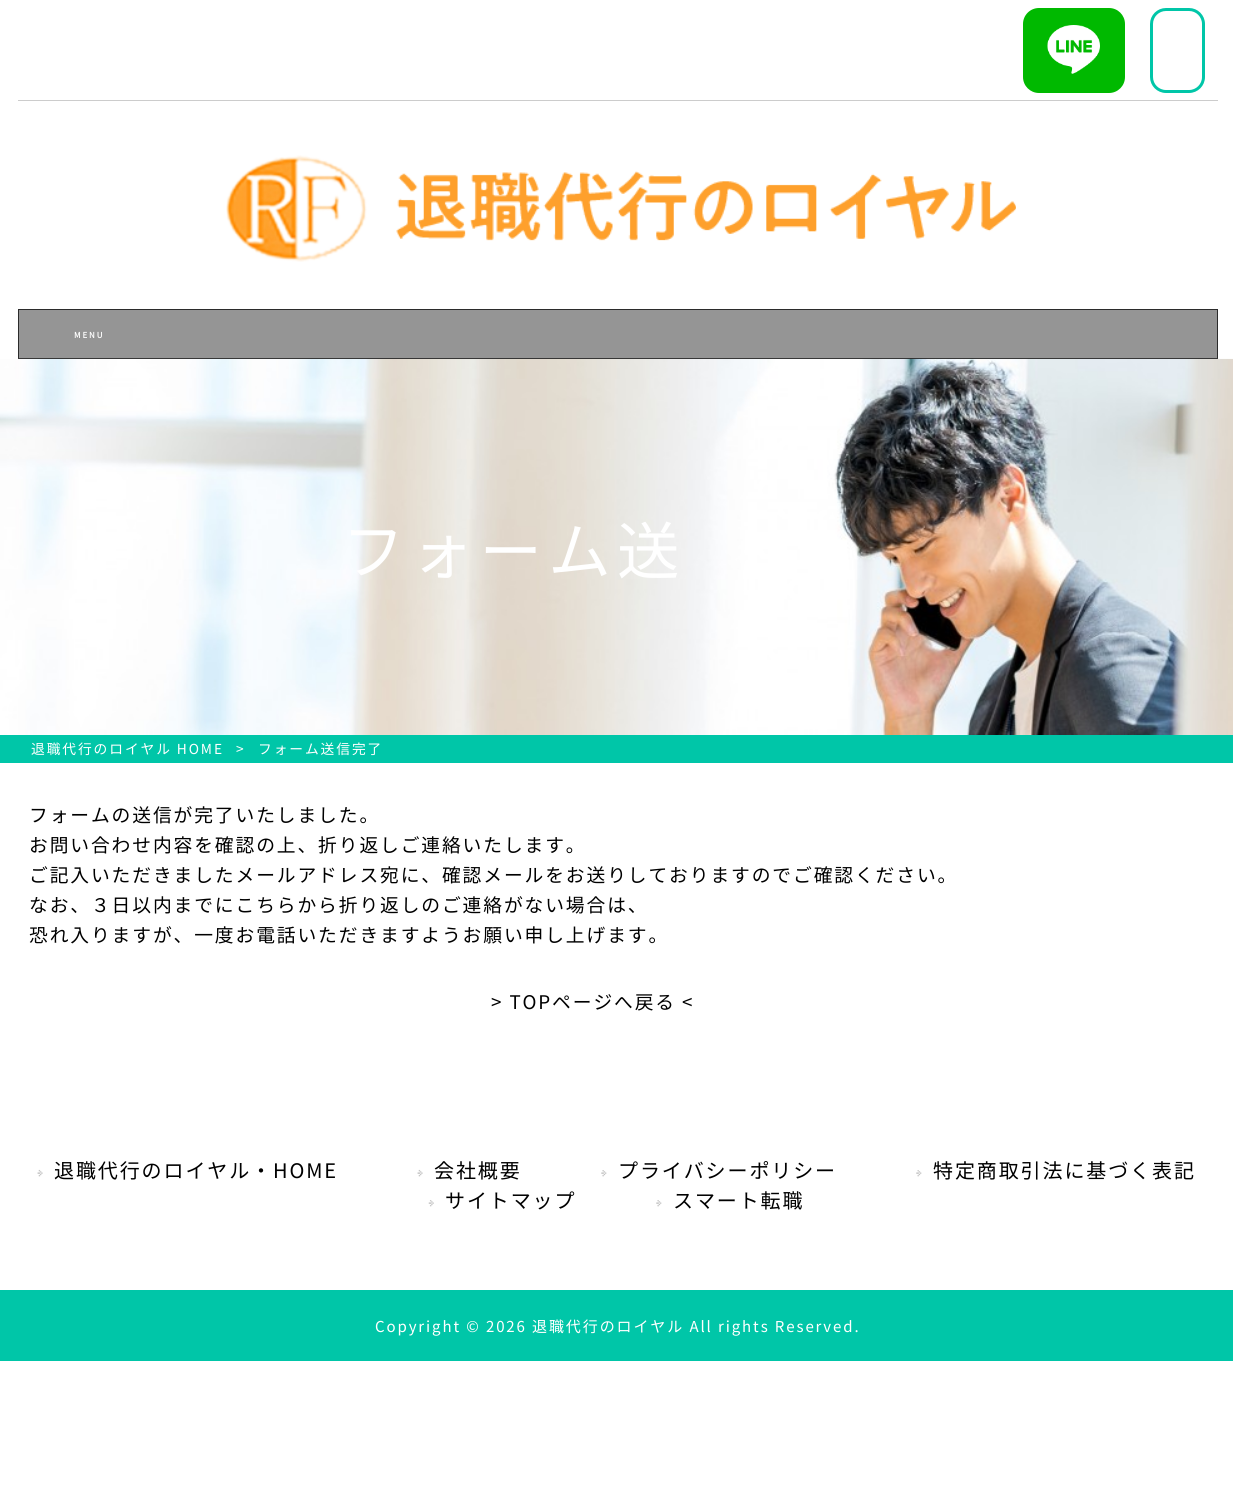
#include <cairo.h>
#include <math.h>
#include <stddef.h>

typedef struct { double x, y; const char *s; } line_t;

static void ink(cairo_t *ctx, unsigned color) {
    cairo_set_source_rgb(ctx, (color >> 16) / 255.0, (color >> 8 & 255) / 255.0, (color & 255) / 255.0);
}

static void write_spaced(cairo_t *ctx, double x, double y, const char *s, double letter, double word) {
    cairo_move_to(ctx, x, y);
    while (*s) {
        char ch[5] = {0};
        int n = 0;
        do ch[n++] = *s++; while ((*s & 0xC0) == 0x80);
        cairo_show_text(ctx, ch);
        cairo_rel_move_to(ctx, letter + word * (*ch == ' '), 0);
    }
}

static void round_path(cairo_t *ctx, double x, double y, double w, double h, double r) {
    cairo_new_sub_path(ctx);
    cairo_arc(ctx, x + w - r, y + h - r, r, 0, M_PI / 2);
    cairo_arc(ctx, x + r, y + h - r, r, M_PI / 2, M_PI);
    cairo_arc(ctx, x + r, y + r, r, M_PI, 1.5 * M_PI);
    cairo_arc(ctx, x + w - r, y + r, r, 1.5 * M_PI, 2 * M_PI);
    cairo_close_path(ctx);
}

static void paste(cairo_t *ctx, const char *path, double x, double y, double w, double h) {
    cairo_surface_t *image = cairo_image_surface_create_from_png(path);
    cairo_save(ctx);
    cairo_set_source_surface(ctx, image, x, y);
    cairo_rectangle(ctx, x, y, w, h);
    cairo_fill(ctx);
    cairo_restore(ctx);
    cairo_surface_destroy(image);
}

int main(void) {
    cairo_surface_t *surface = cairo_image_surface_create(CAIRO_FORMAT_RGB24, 1233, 1502);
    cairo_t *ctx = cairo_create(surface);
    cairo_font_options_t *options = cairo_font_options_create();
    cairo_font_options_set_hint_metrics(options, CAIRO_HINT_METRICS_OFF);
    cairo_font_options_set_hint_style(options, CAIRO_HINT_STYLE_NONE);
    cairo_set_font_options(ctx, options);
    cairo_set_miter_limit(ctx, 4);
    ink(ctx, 0xFFFFFF);
    cairo_paint(ctx);
    ink(ctx, 0xCCCCCC);
    cairo_rectangle(ctx, 18, 100, 1200, 1);
    cairo_fill(ctx);
    ink(ctx, 0x00B900);
    round_path(ctx, 1023, 8, 102, 85, 16);
    cairo_fill(ctx);
    paste(ctx, "media/1.png", 1047, 25, 53, 49);
    round_path(ctx, 1151.5, 9.5, 52, 82, 14.5);
    ink(ctx, 0x00C6A8);
    cairo_set_line_width(ctx, 3);
    cairo_stroke(ctx);
    paste(ctx, "media/2.png", 226, 155, 790, 107);
    ink(ctx, 0x959595);
    cairo_rectangle(ctx, 18.5, 309.5, 1199, 49);
    cairo_fill_preserve(ctx);
    ink(ctx, 0x2B2B2B);
    cairo_set_line_width(ctx, 1);
    cairo_stroke(ctx);
    cairo_select_font_face(ctx, "Noto Sans JP", CAIRO_FONT_SLANT_NORMAL, CAIRO_FONT_WEIGHT_BOLD);
    cairo_set_font_size(ctx, 8);
    ink(ctx, 0xFFFFFF);
    write_spaced(ctx, 74, 338, "MENU", 1.9, 0);
    paste(ctx, "media/3.png", 0, 358, 1233, 377);
    cairo_select_font_face(ctx, "Noto Sans JP Thin", CAIRO_FONT_SLANT_NORMAL, CAIRO_FONT_WEIGHT_NORMAL);
    cairo_set_font_size(ctx, 62.5);
    write_spaced(ctx, 342, 574, "フォーム送", 6.25, 0);
    ink(ctx, 0x00C6A8);
    cairo_rectangle(ctx, 0, 735, 1233, 28);
    cairo_fill(ctx);
    cairo_set_font_size(ctx, 13.75);
    ink(ctx, 0xFFFFFF);
    {
        static const line_t items[] = {
            {31, 754, "退職代行のロイヤル HOME"},
            {236, 754, ">"},
            {258, 754, "フォーム送信完了"},
        };
        for (size_t i = 0; i < sizeof items / sizeof *items; i++) {
            write_spaced(ctx, items[i].x, items[i].y, items[i].s, 1.9, 0);
        }
    }
    cairo_set_font_size(ctx, 18.75);
    ink(ctx, 0x000000);
    {
        static const line_t items[] = {
            {29, 822, "フォームの送信が完了いたしました。"},
            {29, 852, "お問い合わせ内容を確認の上、折り返しご連絡いたします。"},
            {29, 882, "ご記入いただきましたメールアドレス宛に、確認メールをお送りしておりますのでご確認ください。"},
            {29, 912, "なお、３日以内までにこちらから折り返しのご連絡がない場合は、"},
            {29, 942, "恐れ入りますが、一度お電話いただきますようお願い申し上げます。"},
            {491, 1009, "> TOPページへ戻る <"},
        };
        for (size_t i = 0; i < sizeof items / sizeof *items; i++) {
            write_spaced(ctx, items[i].x, items[i].y, items[i].s, 1.9, 0);
        }
    }
    paste(ctx, "media/4.png", 37, 1169, 6, 8);
    cairo_set_font_size(ctx, 20);
    write_spaced(ctx, 54, 1178, "退職代行のロイヤル・HOME", 1.9, 0);
    paste(ctx, "media/4.png", 417, 1169, 6, 8);
    write_spaced(ctx, 434, 1178, "会社概要", 1.9, 0);
    paste(ctx, "media/5.png", 601, 1170, 6, 7);
    write_spaced(ctx, 618, 1178, "プライバシーポリシー", 1.9, 0);
    paste(ctx, "media/6.png", 916, 1170, 6, 7);
    write_spaced(ctx, 933, 1178, "特定商取引法に基づく表記", 1.9, 0);
    paste(ctx, "media/7.png", 428, 1200, 6, 7);
    write_spaced(ctx, 445, 1208, "サイトマップ", 1.9, 0);
    paste(ctx, "media/5.png", 656, 1200, 6, 7);
    write_spaced(ctx, 673, 1208, "スマート転職", 1.9, 0);
    ink(ctx, 0x00C6A8);
    cairo_rectangle(ctx, 0, 1290, 1233, 71);
    cairo_fill(ctx);
    cairo_set_font_size(ctx, 15);
    ink(ctx, 0xFFFFFF);
    write_spaced(ctx, 375, 1332, "Copyright © 2026 退職代行のロイヤル All rights Reserved.", 1.9, 0);
    cairo_surface_write_to_png(surface, "image.png");
    cairo_font_options_destroy(options);
    cairo_destroy(ctx);
    cairo_surface_destroy(surface);
    return 0;
}
